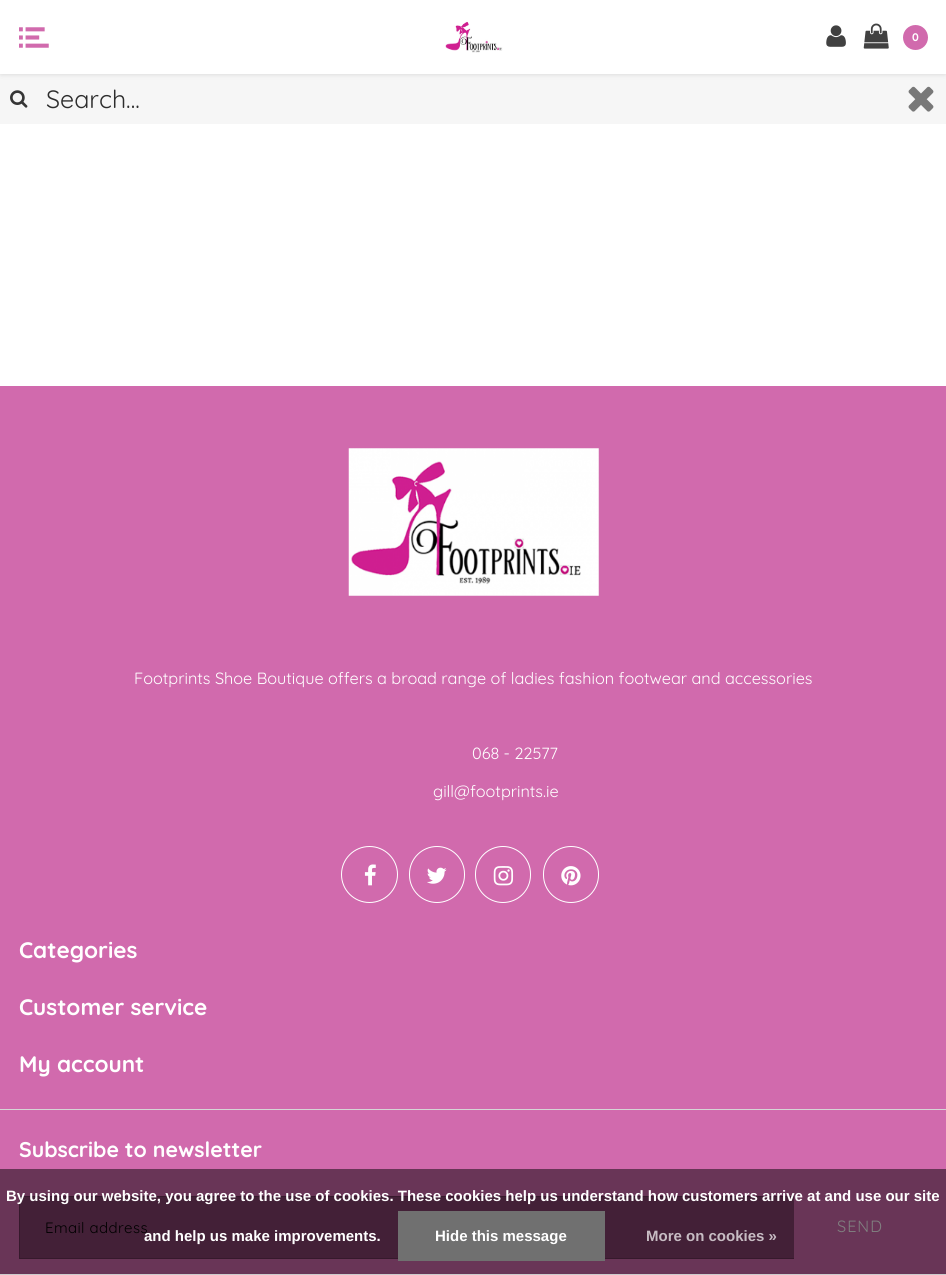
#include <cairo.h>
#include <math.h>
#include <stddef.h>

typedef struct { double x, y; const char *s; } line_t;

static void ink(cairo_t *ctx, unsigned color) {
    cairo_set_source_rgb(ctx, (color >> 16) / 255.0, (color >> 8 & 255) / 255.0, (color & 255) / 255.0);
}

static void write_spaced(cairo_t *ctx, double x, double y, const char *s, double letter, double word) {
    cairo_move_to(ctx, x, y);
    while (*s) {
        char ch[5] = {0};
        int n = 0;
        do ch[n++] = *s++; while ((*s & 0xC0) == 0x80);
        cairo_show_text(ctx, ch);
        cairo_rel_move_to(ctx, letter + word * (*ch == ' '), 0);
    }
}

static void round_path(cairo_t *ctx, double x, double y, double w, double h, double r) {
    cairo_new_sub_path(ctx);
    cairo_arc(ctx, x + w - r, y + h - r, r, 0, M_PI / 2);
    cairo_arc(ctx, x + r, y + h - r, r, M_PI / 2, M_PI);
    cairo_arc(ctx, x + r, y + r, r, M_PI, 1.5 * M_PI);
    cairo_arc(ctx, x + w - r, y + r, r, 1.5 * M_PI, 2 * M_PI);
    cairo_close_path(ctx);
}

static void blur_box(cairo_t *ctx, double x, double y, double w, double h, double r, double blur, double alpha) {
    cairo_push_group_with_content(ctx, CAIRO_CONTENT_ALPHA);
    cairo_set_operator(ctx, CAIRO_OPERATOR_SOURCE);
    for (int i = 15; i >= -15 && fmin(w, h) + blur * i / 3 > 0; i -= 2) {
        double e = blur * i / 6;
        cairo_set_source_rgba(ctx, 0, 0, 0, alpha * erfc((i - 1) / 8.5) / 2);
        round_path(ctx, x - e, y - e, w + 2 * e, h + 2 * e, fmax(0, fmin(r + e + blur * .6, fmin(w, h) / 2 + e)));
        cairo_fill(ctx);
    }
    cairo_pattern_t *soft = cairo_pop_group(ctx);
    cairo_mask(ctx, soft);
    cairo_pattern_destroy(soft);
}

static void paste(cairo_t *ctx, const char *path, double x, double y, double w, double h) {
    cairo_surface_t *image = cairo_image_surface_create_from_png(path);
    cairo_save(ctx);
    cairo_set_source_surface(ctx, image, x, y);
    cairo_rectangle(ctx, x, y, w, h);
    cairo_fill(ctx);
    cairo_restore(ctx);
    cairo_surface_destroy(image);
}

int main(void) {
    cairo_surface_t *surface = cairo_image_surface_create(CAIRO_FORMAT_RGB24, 946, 1275);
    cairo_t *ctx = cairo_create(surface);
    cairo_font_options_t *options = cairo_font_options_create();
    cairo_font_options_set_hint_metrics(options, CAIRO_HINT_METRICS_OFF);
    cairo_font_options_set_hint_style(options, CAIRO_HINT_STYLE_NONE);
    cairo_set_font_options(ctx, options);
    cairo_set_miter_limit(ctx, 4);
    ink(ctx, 0xFFFFFF);
    cairo_paint(ctx);
    ink(ctx, 0xF6F6F6);
    cairo_rectangle(ctx, 0, 74, 946, 50);
    cairo_fill(ctx);
    ink(ctx, 0x000000);
    blur_box(ctx, 1, 1, 944, 72, 0, 3, 0.2);
    ink(ctx, 0xFFFFFF);
    cairo_rectangle(ctx, 0, 0, 946, 74);
    cairo_fill(ctx);
    paste(ctx, "media/1.png", 19, 27, 30, 21);
    paste(ctx, "media/2.png", 445, 21, 58, 32);
    paste(ctx, "media/3.png", 826, 25, 20, 22);
    paste(ctx, "media/4.png", 863, 23, 26, 26);
    ink(ctx, 0xD16AAD);
    cairo_arc(ctx, 915.5, 37.5, 12.5, 0, 2 * M_PI);
    cairo_fill(ctx);
    cairo_select_font_face(ctx, "Quicksand", CAIRO_FONT_SLANT_NORMAL, CAIRO_FONT_WEIGHT_BOLD);
    cairo_set_font_size(ctx, 11);
    ink(ctx, 0xFFFFFF);
    cairo_move_to(ctx, 912, 41);
    cairo_show_text(ctx, "0");
    paste(ctx, "media/5.png", 10, 90, 18, 18);
    cairo_select_font_face(ctx, "Quicksand", CAIRO_FONT_SLANT_NORMAL, CAIRO_FONT_WEIGHT_NORMAL);
    cairo_set_font_size(ctx, 25);
    ink(ctx, 0x2D2D2D);
    cairo_move_to(ctx, 46, 108);
    cairo_show_text(ctx, "Search...");
    paste(ctx, "media/6.png", 908, 86, 26, 26);
    ink(ctx, 0xD16AAD);
    cairo_rectangle(ctx, 0, 386, 946, 783);
    cairo_fill(ctx);
    ink(ctx, 0x693557);
    cairo_rectangle(ctx, 0, 1169, 946, 105);
    cairo_fill(ctx);
    paste(ctx, "media/7.png", 348, 448, 251, 148);
    cairo_set_font_size(ctx, 16.25);
    ink(ctx, 0xFFFFFF);
    {
        static const line_t items[] = {
            {134, 684, "Footprints Shoe Boutique offers a broad range of ladies fashion footwear and accessories"},
            {472, 759, "068 - 22577"},
            {433, 797, "gill@footprints.ie"},
        };
        for (size_t i = 0; i < sizeof items / sizeof *items; i++) {
            cairo_move_to(ctx, items[i].x, items[i].y);
            cairo_show_text(ctx, items[i].s);
        }
    }
    cairo_new_path(ctx);
    cairo_arc(ctx, 369.5, 874.5, 28, 0, 2 * M_PI);
    cairo_set_line_width(ctx, 1);
    cairo_stroke(ctx);
    paste(ctx, "media/8.png", 364, 864, 12, 22);
    round_path(ctx, 409.5, 846.5, 55, 56, 27.5);
    cairo_stroke(ctx);
    paste(ctx, "media/9.png", 427, 867, 20, 17);
    round_path(ctx, 475.5, 846.5, 55, 56, 27.5);
    cairo_stroke(ctx);
    paste(ctx, "media/10.png", 493, 866, 21, 20);
    round_path(ctx, 543.5, 846.5, 55, 56, 27.5);
    cairo_stroke(ctx);
    paste(ctx, "media/11.png", 561, 866, 20, 20);
    cairo_select_font_face(ctx, "Quicksand", CAIRO_FONT_SLANT_NORMAL, CAIRO_FONT_WEIGHT_BOLD);
    cairo_set_font_size(ctx, 22.5);
    {
        static const line_t items[] = {
            {19, 958, "Categories"},
            {19, 1015, "Customer service"},
            {19, 1072, "My account"},
        };
        for (size_t i = 0; i < sizeof items / sizeof *items; i++) {
            cairo_move_to(ctx, items[i].x, items[i].y);
            cairo_show_text(ctx, items[i].s);
        }
    }
    ink(ctx, 0xD6D6D6);
    cairo_rectangle(ctx, 0, 1109, 946, 1);
    cairo_fill(ctx);
    cairo_set_font_size(ctx, 21.25);
    ink(ctx, 0xFFFFFF);
    cairo_move_to(ctx, 19, 1157);
    cairo_show_text(ctx, "Subscribe to newsletter");
    ink(ctx, 0x432037);
    cairo_rectangle(ctx, 20, 1197, 774, 61);
    cairo_fill(ctx);
    cairo_rectangle(ctx, 19.5, 1196.5, 908, 62);
    ink(ctx, 0x36192C);
    cairo_stroke(ctx);
    cairo_select_font_face(ctx, "Quicksand", CAIRO_FONT_SLANT_NORMAL, CAIRO_FONT_WEIGHT_NORMAL);
    cairo_set_font_size(ctx, 15);
    ink(ctx, 0x000000);
    write_spaced(ctx, 45, 1233, "Email address", 0.4, 0);
    ink(ctx, 0x693557);
    cairo_rectangle(ctx, 794, 1196, 134, 63);
    cairo_fill(ctx);
    cairo_set_font_size(ctx, 16.25);
    ink(ctx, 0x808080);
    write_spaced(ctx, 837, 1232, "SEND", 1, 0);
    ink(ctx, 0xCCCCCC);
    cairo_rectangle(ctx, 0, 1274, 946, 1);
    cairo_fill(ctx);
    cairo_select_font_face(ctx, "Liberation Sans", CAIRO_FONT_SLANT_NORMAL, CAIRO_FONT_WEIGHT_BOLD);
    cairo_set_font_size(ctx, 15);
    ink(ctx, 0xFFFFFF);
    cairo_move_to(ctx, 6, 1201);
    cairo_show_text(ctx, "By using our website, you agree to the use of cookies. These cookies help us understand how customers arrive at and use our site");
    cairo_move_to(ctx, 144, 1241);
    cairo_show_text(ctx, "and help us make improvements.");
    ink(ctx, 0x707070);
    cairo_rectangle(ctx, 398, 1211, 207, 50);
    cairo_fill(ctx);
    ink(ctx, 0xFFFFFF);
    cairo_move_to(ctx, 435, 1241);
    cairo_show_text(ctx, "Hide this message");
    ink(ctx, 0xC7BCC3);
    cairo_move_to(ctx, 646, 1241);
    cairo_show_text(ctx, "More on cookies »");
    cairo_surface_write_to_png(surface, "image.png");
    cairo_font_options_destroy(options);
    cairo_destroy(ctx);
    cairo_surface_destroy(surface);
    return 0;
}
